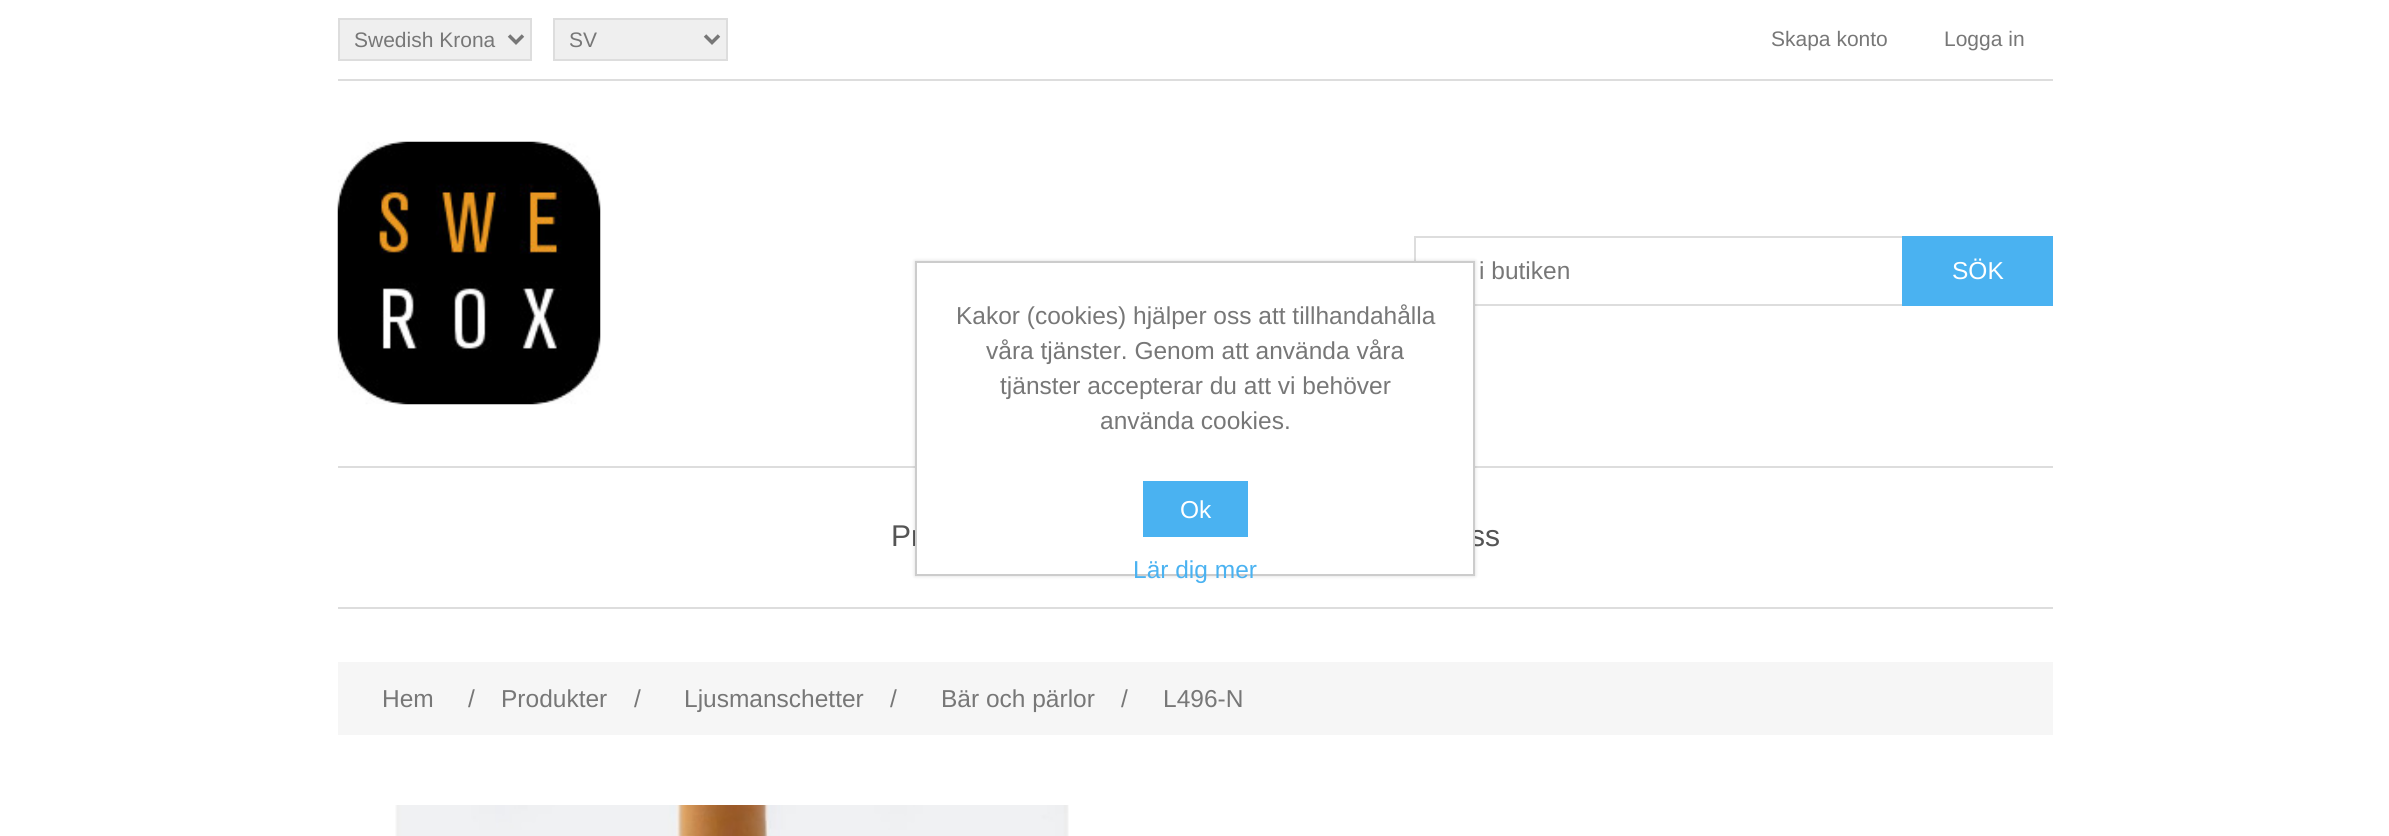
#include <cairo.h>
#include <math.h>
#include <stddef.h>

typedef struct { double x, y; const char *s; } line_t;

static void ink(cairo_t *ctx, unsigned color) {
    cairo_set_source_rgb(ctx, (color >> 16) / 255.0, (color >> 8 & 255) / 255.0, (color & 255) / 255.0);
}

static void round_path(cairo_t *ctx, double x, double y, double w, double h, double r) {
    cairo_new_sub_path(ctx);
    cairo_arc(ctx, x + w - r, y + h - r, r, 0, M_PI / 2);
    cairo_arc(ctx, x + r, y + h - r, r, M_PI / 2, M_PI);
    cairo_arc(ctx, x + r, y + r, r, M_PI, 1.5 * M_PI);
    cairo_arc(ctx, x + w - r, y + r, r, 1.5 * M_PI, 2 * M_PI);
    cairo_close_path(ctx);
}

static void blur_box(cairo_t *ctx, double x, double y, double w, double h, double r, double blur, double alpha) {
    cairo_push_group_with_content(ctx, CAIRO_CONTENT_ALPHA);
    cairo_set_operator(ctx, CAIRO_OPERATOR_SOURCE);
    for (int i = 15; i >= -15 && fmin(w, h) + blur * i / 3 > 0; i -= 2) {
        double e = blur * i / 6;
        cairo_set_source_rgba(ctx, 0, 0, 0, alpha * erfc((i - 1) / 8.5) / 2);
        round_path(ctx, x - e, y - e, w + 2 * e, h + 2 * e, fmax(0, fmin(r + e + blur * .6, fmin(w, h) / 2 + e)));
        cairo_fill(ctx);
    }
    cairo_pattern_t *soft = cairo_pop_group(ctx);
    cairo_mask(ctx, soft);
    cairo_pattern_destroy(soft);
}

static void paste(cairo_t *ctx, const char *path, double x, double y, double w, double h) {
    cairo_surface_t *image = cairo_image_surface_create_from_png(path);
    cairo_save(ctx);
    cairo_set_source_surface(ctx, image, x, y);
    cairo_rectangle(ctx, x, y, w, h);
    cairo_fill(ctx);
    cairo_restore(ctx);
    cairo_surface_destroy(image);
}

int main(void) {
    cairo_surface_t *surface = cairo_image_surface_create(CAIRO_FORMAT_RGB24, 2389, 836);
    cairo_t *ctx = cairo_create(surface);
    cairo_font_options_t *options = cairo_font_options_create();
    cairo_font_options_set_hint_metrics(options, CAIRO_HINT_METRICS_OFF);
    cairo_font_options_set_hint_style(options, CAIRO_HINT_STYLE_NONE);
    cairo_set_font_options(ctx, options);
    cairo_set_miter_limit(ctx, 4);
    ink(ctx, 0xFFFFFF);
    cairo_paint(ctx);
    ink(ctx, 0xDDDDDD);
    cairo_rectangle(ctx, 338, 79, 1715, 2);
    cairo_fill(ctx);
    ink(ctx, 0xEFEFEF);
    cairo_rectangle(ctx, 339, 19, 192, 41);
    cairo_fill_preserve(ctx);
    ink(ctx, 0xDDDDDD);
    cairo_stroke(ctx);
    cairo_new_path(ctx);
    cairo_move_to(ctx, 509, 35.5);
    cairo_line_to(ctx, 516, 42.5);
    cairo_line_to(ctx, 523, 35.5);
    ink(ctx, 0x777777);
    cairo_set_line_width(ctx, 3.5);
    cairo_stroke(ctx);
    cairo_select_font_face(ctx, "Liberation Sans", CAIRO_FONT_SLANT_NORMAL, CAIRO_FONT_WEIGHT_NORMAL);
    cairo_set_font_size(ctx, 21);
    cairo_move_to(ctx, 354, 47);
    cairo_show_text(ctx, "Swedish Krona");
    ink(ctx, 0xEFEFEF);
    cairo_rectangle(ctx, 554, 19, 173, 41);
    cairo_fill_preserve(ctx);
    ink(ctx, 0xDDDDDD);
    cairo_set_line_width(ctx, 2);
    cairo_stroke(ctx);
    cairo_new_path(ctx);
    cairo_move_to(ctx, 705, 35.5);
    cairo_line_to(ctx, 712, 42.5);
    cairo_line_to(ctx, 719, 35.5);
    ink(ctx, 0x777777);
    cairo_set_line_width(ctx, 3.5);
    cairo_stroke(ctx);
    {
        static const line_t items[] = {
            {569, 47, "SV"},
            {1771, 46, "Skapa konto"},
            {1944, 46, "Logga in"},
        };
        for (size_t i = 0; i < sizeof items / sizeof *items; i++) {
            cairo_move_to(ctx, items[i].x, items[i].y);
            cairo_show_text(ctx, items[i].s);
        }
    }
    paste(ctx, "media/1.png", 337, 141, 264, 264);
    cairo_rectangle(ctx, 1415, 237, 488, 68);
    ink(ctx, 0xDDDDDD);
    cairo_set_line_width(ctx, 2);
    cairo_stroke(ctx);
    cairo_set_font_size(ctx, 24.5);
    ink(ctx, 0x777777);
    cairo_move_to(ctx, 1479, 279);
    cairo_show_text(ctx, "i butiken");
    ink(ctx, 0x4AB2F1);
    cairo_rectangle(ctx, 1902, 236, 151, 70);
    cairo_fill(ctx);
    ink(ctx, 0xFFFFFF);
    cairo_move_to(ctx, 1952, 279);
    cairo_show_text(ctx, "SÖK");
    ink(ctx, 0xDDDDDD);
    cairo_rectangle(ctx, 338, 466, 1715, 2);
    cairo_fill(ctx);
    cairo_rectangle(ctx, 338, 607, 1715, 2);
    cairo_fill(ctx);
    cairo_set_font_size(ctx, 30);
    ink(ctx, 0x555555);
    cairo_move_to(ctx, 891, 546);
    cairo_show_text(ctx, "Pr");
    cairo_move_to(ctx, 1470, 546);
    cairo_show_text(ctx, "ss");
    ink(ctx, 0xF6F6F6);
    cairo_rectangle(ctx, 338, 662, 1715, 73);
    cairo_fill(ctx);
    cairo_set_font_size(ctx, 24.5);
    ink(ctx, 0x777777);
    {
        static const line_t items[] = {
            {382, 707, "Hem"},
            {468, 707, "/"},
            {501, 707, "Produkter"},
            {634, 707, "/"},
            {684, 707, "Ljusmanschetter"},
            {890, 707, "/"},
            {941, 707, "Bär och pärlor"},
            {1121, 707, "/"},
            {1163, 707, "L496-N"},
        };
        for (size_t i = 0; i < sizeof items / sizeof *items; i++) {
            cairo_move_to(ctx, items[i].x, items[i].y);
            cairo_show_text(ctx, items[i].s);
        }
    }
    paste(ctx, "media/2.png", 395, 805, 674, 31);
    ink(ctx, 0x000000);
    blur_box(ctx, 915, 261, 560, 315, 0, 2, 0.15);
    ink(ctx, 0xFFFFFF);
    cairo_rectangle(ctx, 916, 262, 558, 313);
    cairo_fill_preserve(ctx);
    ink(ctx, 0xCCCCCC);
    cairo_stroke(ctx);
    ink(ctx, 0x777777);
    {
        static const line_t items[] = {
            {956, 324, "Kakor (cookies) hjälper oss att tillhandahålla"},
            {986, 359, "våra tjänster. Genom att använda våra"},
            {1000, 394, "tjänster accepterar du att vi behöver"},
            {1100, 429, "använda cookies."},
        };
        for (size_t i = 0; i < sizeof items / sizeof *items; i++) {
            cairo_move_to(ctx, items[i].x, items[i].y);
            cairo_show_text(ctx, items[i].s);
        }
    }
    ink(ctx, 0x4AB2F1);
    cairo_rectangle(ctx, 1143, 481, 105, 56);
    cairo_fill(ctx);
    ink(ctx, 0xFFFFFF);
    cairo_move_to(ctx, 1180, 518);
    cairo_show_text(ctx, "Ok");
    ink(ctx, 0x4AB2F1);
    cairo_move_to(ctx, 1133, 578);
    cairo_show_text(ctx, "Lär dig mer");
    cairo_surface_write_to_png(surface, "image.png");
    cairo_font_options_destroy(options);
    cairo_destroy(ctx);
    cairo_surface_destroy(surface);
    return 0;
}
